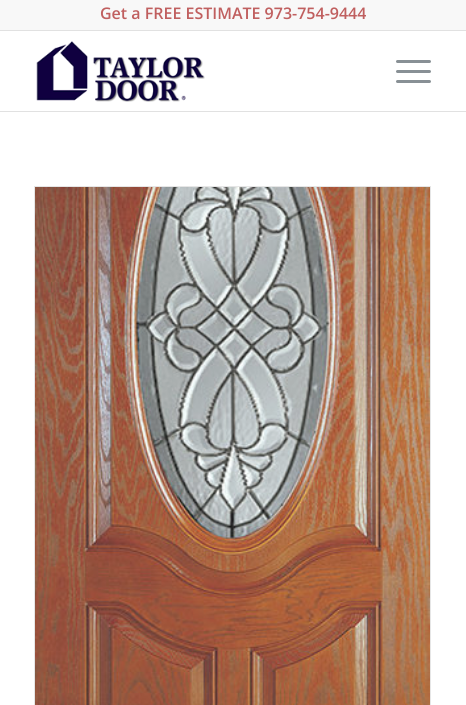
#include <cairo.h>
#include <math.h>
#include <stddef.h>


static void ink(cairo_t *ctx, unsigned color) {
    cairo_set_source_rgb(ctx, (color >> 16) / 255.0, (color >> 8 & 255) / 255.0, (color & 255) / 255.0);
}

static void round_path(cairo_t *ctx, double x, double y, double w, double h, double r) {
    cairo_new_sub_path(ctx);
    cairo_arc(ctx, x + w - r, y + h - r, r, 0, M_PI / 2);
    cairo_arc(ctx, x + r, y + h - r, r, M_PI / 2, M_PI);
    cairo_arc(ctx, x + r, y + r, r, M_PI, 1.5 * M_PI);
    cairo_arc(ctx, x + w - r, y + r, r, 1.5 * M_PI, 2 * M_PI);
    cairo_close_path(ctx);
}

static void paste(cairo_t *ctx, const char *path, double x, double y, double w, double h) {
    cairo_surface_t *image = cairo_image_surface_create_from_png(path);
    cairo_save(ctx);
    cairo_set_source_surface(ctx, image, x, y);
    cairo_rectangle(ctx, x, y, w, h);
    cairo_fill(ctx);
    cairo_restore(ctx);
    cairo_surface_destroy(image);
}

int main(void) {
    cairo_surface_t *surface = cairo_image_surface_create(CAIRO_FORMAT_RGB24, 466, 705);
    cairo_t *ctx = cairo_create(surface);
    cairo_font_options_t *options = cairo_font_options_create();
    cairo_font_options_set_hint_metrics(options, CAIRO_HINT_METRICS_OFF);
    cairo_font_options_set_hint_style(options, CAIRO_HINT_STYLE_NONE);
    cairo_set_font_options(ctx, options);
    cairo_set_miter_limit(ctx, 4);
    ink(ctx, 0xFFFFFF);
    cairo_paint(ctx);
    ink(ctx, 0xF8F8F8);
    cairo_rectangle(ctx, 0, 0, 466, 30);
    cairo_fill(ctx);
    ink(ctx, 0xE1E1E1);
    cairo_rectangle(ctx, 0, 30, 466, 1);
    cairo_fill(ctx);
    cairo_select_font_face(ctx, "Open Sans SemiBold", CAIRO_FONT_SLANT_NORMAL, CAIRO_FONT_WEIGHT_NORMAL);
    cairo_set_font_size(ctx, 16);
    ink(ctx, 0xC05F5F);
    cairo_move_to(ctx, 100, 19);
    cairo_show_text(ctx, "Get a FREE ESTIMATE 973-754-9444");
    ink(ctx, 0xE1E1E1);
    cairo_rectangle(ctx, 0, 111, 466, 1);
    cairo_fill(ctx);
    paste(ctx, "media/1.png", 36, 41, 169, 61);
    ink(ctx, 0x889095);
    round_path(ctx, 396, 70, 35, 3, 1.5);
    cairo_fill(ctx);
    round_path(ctx, 396, 60, 35, 3, 1.5);
    cairo_fill(ctx);
    round_path(ctx, 396, 80, 35, 3, 1.5);
    cairo_fill(ctx);
    cairo_rectangle(ctx, 34.5, 186.5, 396, 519);
    ink(ctx, 0xE6E6E6);
    cairo_set_line_width(ctx, 1);
    cairo_stroke(ctx);
    paste(ctx, "media/2.png", 35, 187, 395, 518);
    cairo_surface_write_to_png(surface, "image.png");
    cairo_font_options_destroy(options);
    cairo_destroy(ctx);
    cairo_surface_destroy(surface);
    return 0;
}
